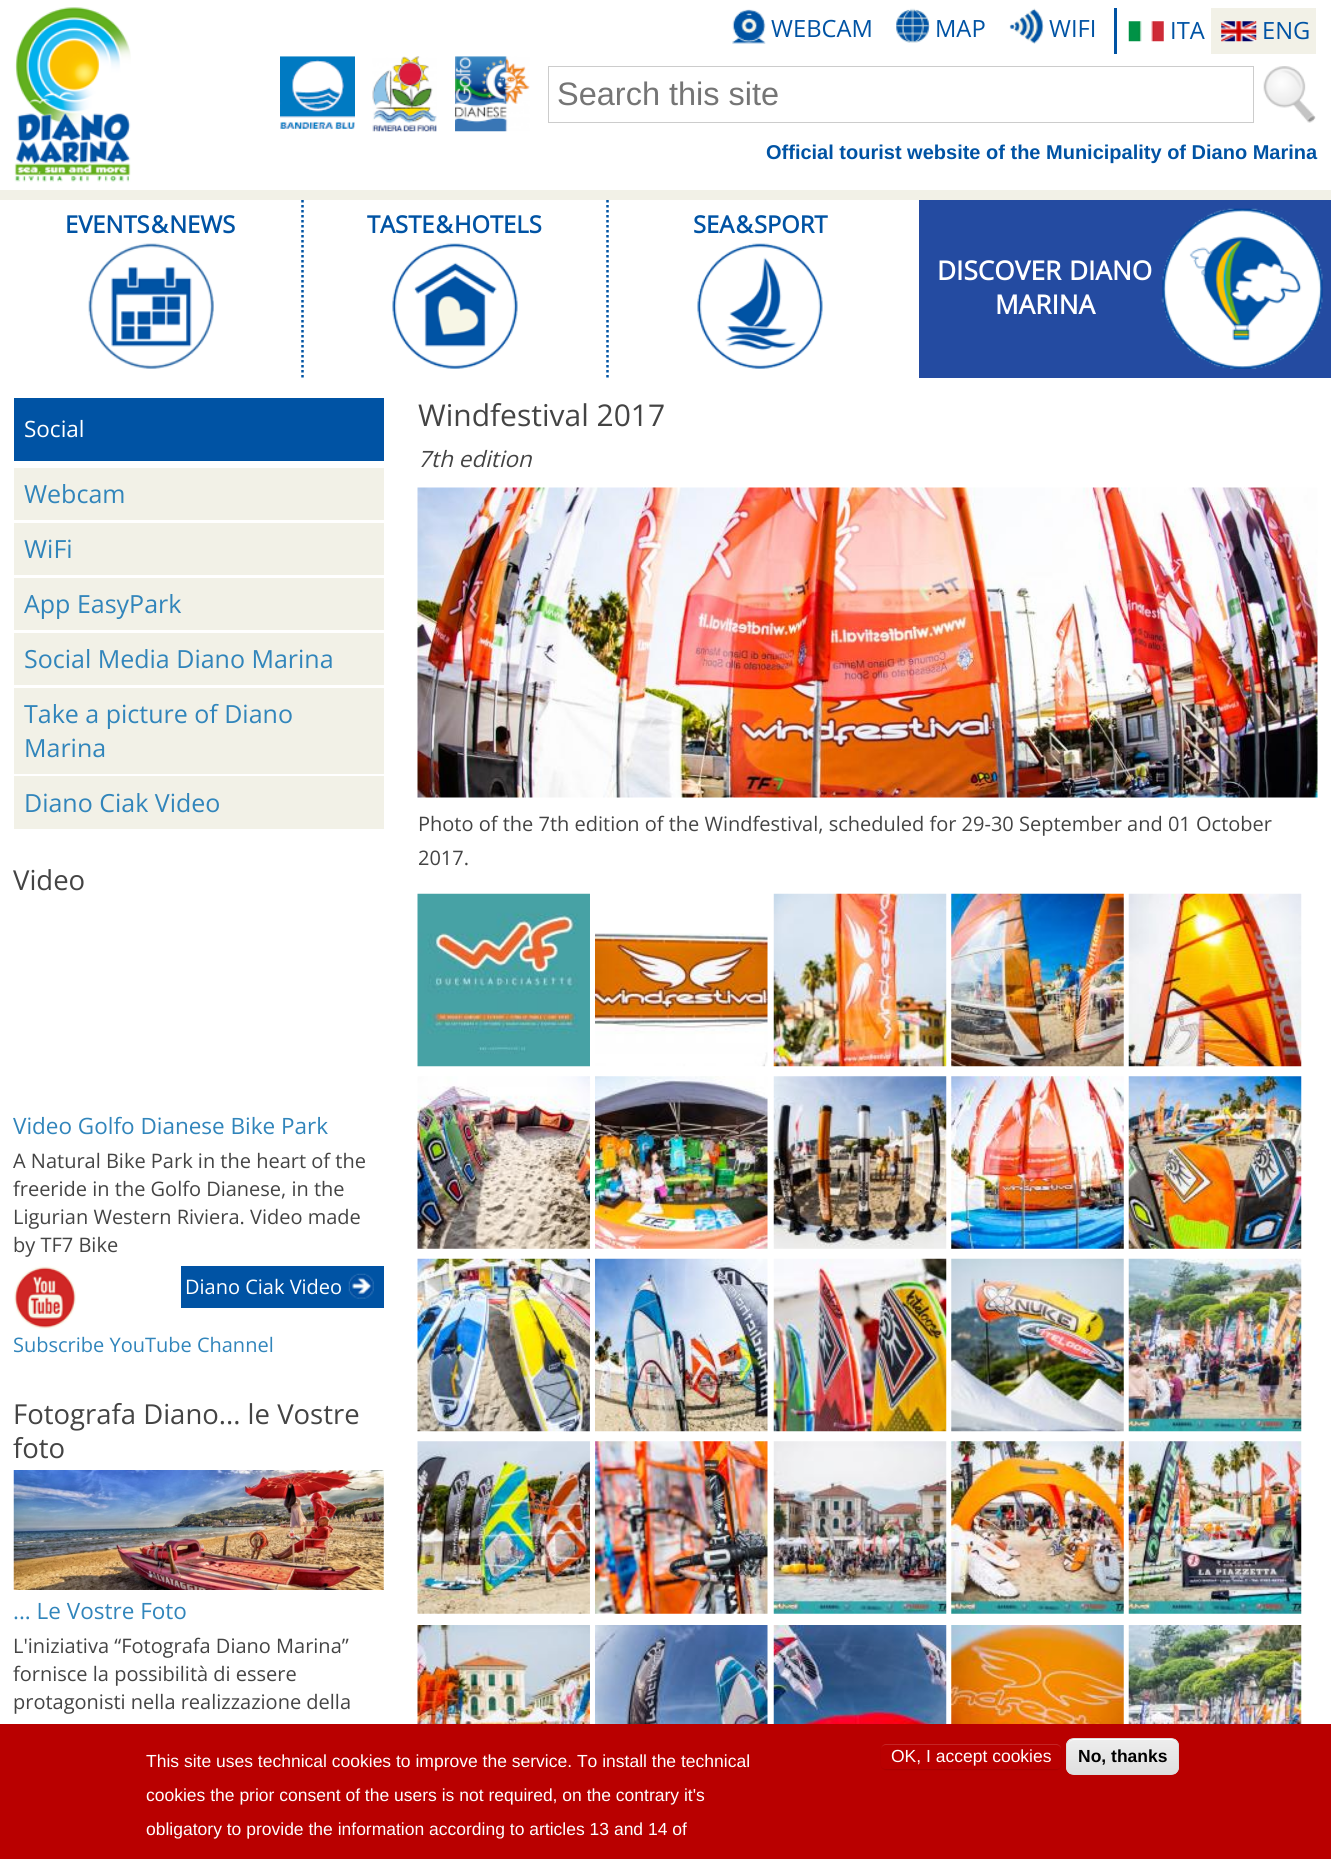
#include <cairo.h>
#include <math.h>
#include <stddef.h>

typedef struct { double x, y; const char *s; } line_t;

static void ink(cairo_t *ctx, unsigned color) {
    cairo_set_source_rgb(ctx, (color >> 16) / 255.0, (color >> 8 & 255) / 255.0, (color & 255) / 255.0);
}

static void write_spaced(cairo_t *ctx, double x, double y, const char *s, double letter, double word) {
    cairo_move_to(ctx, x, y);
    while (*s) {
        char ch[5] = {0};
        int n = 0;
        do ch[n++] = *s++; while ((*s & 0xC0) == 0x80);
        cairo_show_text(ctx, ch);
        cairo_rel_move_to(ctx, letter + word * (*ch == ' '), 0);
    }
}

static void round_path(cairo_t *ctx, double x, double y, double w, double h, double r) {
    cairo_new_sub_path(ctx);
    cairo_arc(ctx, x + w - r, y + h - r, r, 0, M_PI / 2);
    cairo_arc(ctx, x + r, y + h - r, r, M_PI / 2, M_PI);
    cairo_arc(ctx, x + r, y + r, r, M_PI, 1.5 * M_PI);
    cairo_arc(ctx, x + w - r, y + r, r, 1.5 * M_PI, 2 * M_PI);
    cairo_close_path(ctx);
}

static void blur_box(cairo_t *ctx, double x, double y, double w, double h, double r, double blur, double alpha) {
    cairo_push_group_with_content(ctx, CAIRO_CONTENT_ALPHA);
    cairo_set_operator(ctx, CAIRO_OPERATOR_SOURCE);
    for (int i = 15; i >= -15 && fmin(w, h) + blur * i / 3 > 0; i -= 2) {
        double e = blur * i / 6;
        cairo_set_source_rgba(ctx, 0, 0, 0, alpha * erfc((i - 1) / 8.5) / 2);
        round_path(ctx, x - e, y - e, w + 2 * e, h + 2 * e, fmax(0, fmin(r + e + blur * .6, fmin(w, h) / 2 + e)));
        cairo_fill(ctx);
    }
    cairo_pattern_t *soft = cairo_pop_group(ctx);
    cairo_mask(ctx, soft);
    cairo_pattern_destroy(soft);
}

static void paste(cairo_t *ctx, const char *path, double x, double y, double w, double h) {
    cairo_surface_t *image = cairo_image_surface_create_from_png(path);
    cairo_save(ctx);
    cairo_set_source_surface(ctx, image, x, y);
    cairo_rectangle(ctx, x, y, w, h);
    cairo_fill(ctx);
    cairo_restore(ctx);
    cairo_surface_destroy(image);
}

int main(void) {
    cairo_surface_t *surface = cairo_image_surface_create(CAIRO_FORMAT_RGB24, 1331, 1859);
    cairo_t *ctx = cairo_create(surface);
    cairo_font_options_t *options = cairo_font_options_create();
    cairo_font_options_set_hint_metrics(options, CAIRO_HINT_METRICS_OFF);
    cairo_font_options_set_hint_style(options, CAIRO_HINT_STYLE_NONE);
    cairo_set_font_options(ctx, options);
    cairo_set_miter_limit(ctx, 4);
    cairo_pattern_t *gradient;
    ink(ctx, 0xFFFFFF);
    cairo_paint(ctx);
    paste(ctx, "media/1.png", 14, 7, 117, 175);
    paste(ctx, "media/2.png", 732, 9, 34, 35);
    cairo_select_font_face(ctx, "Open Sans", CAIRO_FONT_SLANT_NORMAL, CAIRO_FONT_WEIGHT_NORMAL);
    cairo_set_font_size(ctx, 23.75);
    ink(ctx, 0x0053A4);
    cairo_move_to(ctx, 771, 37);
    cairo_show_text(ctx, "WEBCAM");
    paste(ctx, "media/3.png", 896, 8, 34, 35);
    cairo_move_to(ctx, 935, 37);
    cairo_show_text(ctx, "MAP");
    paste(ctx, "media/4.png", 1009, 8, 35, 36);
    cairo_move_to(ctx, 1049, 37);
    cairo_show_text(ctx, "WIFI");
    cairo_rectangle(ctx, 1114, 8, 3, 46);
    cairo_fill(ctx);
    paste(ctx, "media/5.png", 1128, 21, 36, 21);
    cairo_move_to(ctx, 1170, 39);
    cairo_show_text(ctx, "ITA");
    ink(ctx, 0xF2F1E7);
    cairo_rectangle(ctx, 1211, 8, 105, 46);
    cairo_fill(ctx);
    paste(ctx, "media/6.png", 1221, 21, 36, 21);
    ink(ctx, 0x0053A4);
    cairo_move_to(ctx, 1262, 39);
    cairo_show_text(ctx, "ENG");
    paste(ctx, "media/7.png", 280, 56, 75, 73);
    paste(ctx, "media/8.png", 372, 56, 65, 76);
    paste(ctx, "media/9.png", 455, 56, 75, 76);
    cairo_rectangle(ctx, 548.5, 66.5, 705, 56);
    ink(ctx, 0xCCCCCC);
    cairo_set_line_width(ctx, 1);
    cairo_stroke(ctx);
    cairo_select_font_face(ctx, "Liberation Sans", CAIRO_FONT_SLANT_NORMAL, CAIRO_FONT_WEIGHT_NORMAL);
    cairo_set_font_size(ctx, 32.5);
    ink(ctx, 0x757575);
    cairo_move_to(ctx, 557, 105);
    cairo_show_text(ctx, "Search this site");
    paste(ctx, "media/10.png", 1263, 66, 53, 57);
    cairo_select_font_face(ctx, "Liberation Sans", CAIRO_FONT_SLANT_NORMAL, CAIRO_FONT_WEIGHT_BOLD);
    cairo_set_font_size(ctx, 20);
    ink(ctx, 0x0053A4);
    cairo_move_to(ctx, 766, 159);
    cairo_show_text(ctx, "Official tourist website of the Municipality of Diano Marina");
    ink(ctx, 0xF2F1E7);
    cairo_rectangle(ctx, 0, 190, 1331, 10);
    cairo_fill(ctx);
    paste(ctx, "media/11.png", 88, 243, 126, 126);
    cairo_new_path(ctx);
    cairo_move_to(ctx, 302.5, 200);
    cairo_line_to(ctx, 302.5, 377.5);
    ink(ctx, 0x0053A4);
    cairo_set_line_width(ctx, 2.5);
    cairo_set_dash(ctx, (double[]){2.5, 2.5}, 2, 0);
    cairo_stroke(ctx);
    cairo_select_font_face(ctx, "Open Sans", CAIRO_FONT_SLANT_NORMAL, CAIRO_FONT_WEIGHT_BOLD);
    cairo_set_font_size(ctx, 23.75);
    write_spaced(ctx, 65, 233, "EVENTS & NEWS", 0, -5);
    paste(ctx, "media/12.png", 392, 243, 126, 126);
    cairo_new_path(ctx);
    cairo_move_to(ctx, 607.5, 200);
    cairo_line_to(ctx, 607.5, 377.5);
    cairo_stroke(ctx);
    write_spaced(ctx, 367, 233, "TASTE & HOTELS", 0, -5);
    paste(ctx, "media/13.png", 697, 243, 126, 126);
    write_spaced(ctx, 693, 233, "SEA & SPORT", 0, -5);
    ink(ctx, 0x244BA1);
    cairo_rectangle(ctx, 919, 200, 412, 178);
    cairo_fill(ctx);
    paste(ctx, "media/14.png", 1161, 208, 162, 161);
    cairo_set_font_size(ctx, 26.25);
    ink(ctx, 0xFFFFFF);
    write_spaced(ctx, 937, 280, "DISCOVER DIANO", 0, 1);
    cairo_move_to(ctx, 995, 314);
    cairo_show_text(ctx, "MARINA");
    ink(ctx, 0x0053A4);
    cairo_rectangle(ctx, 14, 398, 370, 63);
    cairo_fill(ctx);
    cairo_select_font_face(ctx, "Open Sans", CAIRO_FONT_SLANT_NORMAL, CAIRO_FONT_WEIGHT_NORMAL);
    cairo_set_font_size(ctx, 22.5);
    ink(ctx, 0xFFFFFF);
    cairo_move_to(ctx, 24, 437);
    cairo_show_text(ctx, "Social");
    ink(ctx, 0xF2F1E7);
    cairo_rectangle(ctx, 14, 468, 370, 52);
    cairo_fill(ctx);
    cairo_set_font_size(ctx, 25);
    ink(ctx, 0x3185BB);
    cairo_move_to(ctx, 24, 503);
    cairo_show_text(ctx, "Webcam");
    ink(ctx, 0xF2F1E7);
    cairo_rectangle(ctx, 14, 523, 370, 52);
    cairo_fill(ctx);
    ink(ctx, 0x3185BB);
    cairo_move_to(ctx, 24, 558);
    cairo_show_text(ctx, "WiFi");
    ink(ctx, 0xF2F1E7);
    cairo_rectangle(ctx, 14, 578, 370, 52);
    cairo_fill(ctx);
    ink(ctx, 0x3185BB);
    cairo_move_to(ctx, 24, 613);
    cairo_show_text(ctx, "App EasyPark");
    ink(ctx, 0xF2F1E7);
    cairo_rectangle(ctx, 14, 633, 370, 52);
    cairo_fill(ctx);
    ink(ctx, 0x3185BB);
    cairo_move_to(ctx, 24, 668);
    cairo_show_text(ctx, "Social Media Diano Marina");
    ink(ctx, 0xF2F1E7);
    cairo_rectangle(ctx, 14, 688, 370, 86);
    cairo_fill(ctx);
    ink(ctx, 0x3185BB);
    cairo_move_to(ctx, 24, 723);
    cairo_show_text(ctx, "Take a picture of Diano");
    cairo_move_to(ctx, 24, 757);
    cairo_show_text(ctx, "Marina");
    ink(ctx, 0xF2F1E7);
    cairo_rectangle(ctx, 14, 776, 370, 53);
    cairo_fill(ctx);
    ink(ctx, 0x3185BB);
    cairo_move_to(ctx, 24, 812);
    cairo_show_text(ctx, "Diano Ciak Video");
    cairo_set_font_size(ctx, 27.5);
    ink(ctx, 0x444444);
    cairo_move_to(ctx, 13, 890);
    cairo_show_text(ctx, "Video");
    cairo_set_font_size(ctx, 22.5);
    ink(ctx, 0x3185BB);
    cairo_move_to(ctx, 13, 1134);
    cairo_show_text(ctx, "Video Golfo Dianese Bike Park");
    cairo_set_font_size(ctx, 20);
    ink(ctx, 0x444444);
    {
        static const line_t items[] = {
            {13, 1168, "A Natural Bike Park in the heart of the"},
            {13, 1196, "freeride in the Golfo Dianese, in the"},
            {13, 1224, "Ligurian Western Riviera. Video made"},
            {13, 1252, "by TF7 Bike"},
        };
        for (size_t i = 0; i < sizeof items / sizeof *items; i++) {
            cairo_move_to(ctx, items[i].x, items[i].y);
            cairo_show_text(ctx, items[i].s);
        }
    }
    ink(ctx, 0x0053A4);
    cairo_rectangle(ctx, 181, 1266, 203, 42);
    cairo_fill(ctx);
    paste(ctx, "media/15.png", 348, 1273, 26, 26);
    ink(ctx, 0xFFFFFF);
    cairo_move_to(ctx, 185, 1294);
    cairo_show_text(ctx, "Diano Ciak Video");
    paste(ctx, "media/16.png", 14, 1266, 62, 63);
    ink(ctx, 0x3185BB);
    cairo_move_to(ctx, 13, 1352);
    cairo_show_text(ctx, "Subscribe YouTube Channel");
    cairo_set_font_size(ctx, 27.5);
    ink(ctx, 0x444444);
    cairo_move_to(ctx, 13, 1424);
    cairo_show_text(ctx, "Fotografa Diano... le Vostre");
    cairo_move_to(ctx, 13, 1458);
    cairo_show_text(ctx, "foto");
    paste(ctx, "media/17.png", 13, 1470, 371, 120);
    cairo_set_font_size(ctx, 22.5);
    ink(ctx, 0x3185BB);
    cairo_move_to(ctx, 13, 1619);
    cairo_show_text(ctx, "... Le Vostre Foto");
    cairo_set_font_size(ctx, 20);
    ink(ctx, 0x444444);
    {
        static const line_t items[] = {
            {13, 1653, "L'iniziativa “Fotografa Diano Marina”"},
            {13, 1681, "fornisce la possibilità di essere"},
            {13, 1709, "protagonisti nella realizzazione della"},
        };
        for (size_t i = 0; i < sizeof items / sizeof *items; i++) {
            cairo_move_to(ctx, items[i].x, items[i].y);
            cairo_show_text(ctx, items[i].s);
        }
    }
    cairo_set_font_size(ctx, 30);
    cairo_move_to(ctx, 418, 426);
    cairo_show_text(ctx, "Windfestival 2017");
    cairo_select_font_face(ctx, "Open Sans", CAIRO_FONT_SLANT_ITALIC, CAIRO_FONT_WEIGHT_NORMAL);
    cairo_set_font_size(ctx, 22.5);
    cairo_move_to(ctx, 418, 467);
    cairo_show_text(ctx, "7th edition");
    paste(ctx, "media/18.png", 417, 487, 901, 311);
    cairo_select_font_face(ctx, "Open Sans", CAIRO_FONT_SLANT_NORMAL, CAIRO_FONT_WEIGHT_NORMAL);
    cairo_set_font_size(ctx, 20);
    cairo_move_to(ctx, 418, 831);
    cairo_show_text(ctx, "Photo of the 7th edition of the Windfestival, scheduled for 29-30 September and 01 October");
    cairo_move_to(ctx, 418, 865);
    cairo_show_text(ctx, "2017.");
    paste(ctx, "media/19.png", 417, 893, 173, 174);
    paste(ctx, "media/20.png", 595, 933, 173, 134);
    paste(ctx, "media/21.png", 773, 893, 174, 174);
    paste(ctx, "media/22.png", 951, 893, 173, 174);
    paste(ctx, "media/23.png", 1128, 893, 174, 174);
    paste(ctx, "media/24.png", 417, 1076, 173, 173);
    paste(ctx, "media/25.png", 595, 1076, 173, 173);
    paste(ctx, "media/26.png", 773, 1076, 174, 173);
    paste(ctx, "media/27.png", 951, 1076, 173, 173);
    paste(ctx, "media/28.png", 1128, 1076, 174, 173);
    paste(ctx, "media/29.png", 417, 1258, 173, 174);
    paste(ctx, "media/30.png", 595, 1258, 173, 174);
    paste(ctx, "media/31.png", 773, 1258, 174, 174);
    paste(ctx, "media/32.png", 951, 1258, 173, 174);
    paste(ctx, "media/33.png", 1128, 1258, 174, 174);
    paste(ctx, "media/34.png", 417, 1441, 173, 173);
    paste(ctx, "media/35.png", 595, 1441, 173, 173);
    paste(ctx, "media/36.png", 773, 1441, 174, 173);
    paste(ctx, "media/37.png", 951, 1441, 173, 173);
    paste(ctx, "media/38.png", 1128, 1441, 174, 173);
    paste(ctx, "media/39.png", 417, 1625, 173, 99);
    paste(ctx, "media/40.png", 595, 1625, 173, 99);
    paste(ctx, "media/41.png", 773, 1625, 174, 99);
    paste(ctx, "media/42.png", 951, 1625, 173, 99);
    paste(ctx, "media/43.png", 1128, 1625, 174, 99);
    ink(ctx, 0xB90000);
    cairo_rectangle(ctx, 0, 1724, 1331, 135);
    cairo_fill(ctx);
    cairo_select_font_face(ctx, "Liberation Sans", CAIRO_FONT_SLANT_NORMAL, CAIRO_FONT_WEIGHT_NORMAL);
    cairo_set_font_size(ctx, 17.5);
    ink(ctx, 0xFFFFFF);
    {
        static const line_t items[] = {
            {146, 1767, "This site uses technical cookies to improve the service. To install the technical"},
            {146, 1801, "cookies the prior consent of the users is not required, on the contrary it's"},
            {146, 1835, "obligatory to provide the information according to articles 13 and 14 of"},
        };
        for (size_t i = 0; i < sizeof items / sizeof *items; i++) {
            cairo_move_to(ctx, items[i].x, items[i].y);
            cairo_show_text(ctx, items[i].s);
        }
    }
    cairo_save(ctx);
    cairo_set_fill_rule(ctx, CAIRO_FILL_RULE_EVEN_ODD);
    cairo_new_path(ctx);
    cairo_move_to(ctx, 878, 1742);
    cairo_line_to(ctx, 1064, 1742);
    cairo_line_to(ctx, 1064, 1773);
    cairo_line_to(ctx, 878, 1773);
    cairo_close_path(ctx);
    cairo_move_to(ctx, 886, 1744);
    cairo_line_to(ctx, 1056, 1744);
    cairo_curve_to(ctx, 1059, 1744, 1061, 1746, 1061, 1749);
    cairo_line_to(ctx, 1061, 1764);
    cairo_curve_to(ctx, 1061, 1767, 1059, 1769, 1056, 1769);
    cairo_line_to(ctx, 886, 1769);
    cairo_curve_to(ctx, 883, 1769, 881, 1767, 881, 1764);
    cairo_line_to(ctx, 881, 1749);
    cairo_curve_to(ctx, 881, 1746, 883, 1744, 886, 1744);
    cairo_close_path(ctx);
    cairo_clip(ctx);
    ink(ctx, 0x000000);
    blur_box(ctx, 881, 1745, 180, 25, 5, 0.5, 0.1);
    cairo_restore(ctx);
    ink(ctx, 0xC32626);
    cairo_new_path(ctx);
    cairo_move_to(ctx, 886, 1745);
    cairo_line_to(ctx, 1056, 1745);
    cairo_curve_to(ctx, 1059, 1745, 1061, 1747, 1061, 1750);
    cairo_curve_to(ctx, 1061, 1747, 1060, 1745, 1057, 1744);
    cairo_line_to(ctx, 886, 1744);
    cairo_curve_to(ctx, 883, 1744, 881, 1747, 881, 1750);
    cairo_curve_to(ctx, 881, 1747, 883, 1745, 886, 1745);
    cairo_close_path(ctx);
    cairo_fill(ctx);
    ink(ctx, 0xFFFFFF);
    cairo_move_to(ctx, 891, 1762);
    cairo_show_text(ctx, "OK, I accept cookies");
    cairo_save(ctx);
    round_path(ctx, 1066, 1738, 113, 37, 8);
    cairo_clip(ctx);
    gradient = cairo_pattern_create_linear(1123, 1739, 1123, 1774);
    cairo_pattern_add_color_stop_rgba(gradient, 0.05, 0.929, 0.929, 0.929, 1);
    cairo_pattern_add_color_stop_rgba(gradient, 1, 0.875, 0.875, 0.875, 1);
    cairo_set_source(ctx, gradient);
    cairo_pattern_destroy(gradient);
    cairo_rectangle(ctx, 1066, 1739, 113, 35);
    cairo_fill(ctx);
    cairo_restore(ctx);
    cairo_new_path(ctx);
    cairo_move_to(ctx, 1074, 1740);
    cairo_line_to(ctx, 1171, 1740);
    cairo_curve_to(ctx, 1175, 1740, 1178, 1743, 1178, 1746);
    cairo_curve_to(ctx, 1178, 1735, 1162, 1739, 1156, 1739);
    cairo_line_to(ctx, 1090, 1739);
    cairo_curve_to(ctx, 1084, 1739, 1068, 1735, 1068, 1746);
    cairo_curve_to(ctx, 1068, 1743, 1070, 1740, 1074, 1740);
    cairo_close_path(ctx);
    cairo_fill(ctx);
    round_path(ctx, 1066.5, 1738.5, 112, 36, 7.5);
    ink(ctx, 0xDCDCDC);
    cairo_set_line_width(ctx, 1);
    cairo_set_dash(ctx, NULL, 0, 0);
    cairo_stroke(ctx);
    cairo_select_font_face(ctx, "Liberation Sans", CAIRO_FONT_SLANT_NORMAL, CAIRO_FONT_WEIGHT_BOLD);
    ink(ctx, 0x000000);
    cairo_move_to(ctx, 1078, 1762);
    cairo_show_text(ctx, "No, thanks");
    cairo_surface_write_to_png(surface, "image.png");
    cairo_font_options_destroy(options);
    cairo_destroy(ctx);
    cairo_surface_destroy(surface);
    return 0;
}
